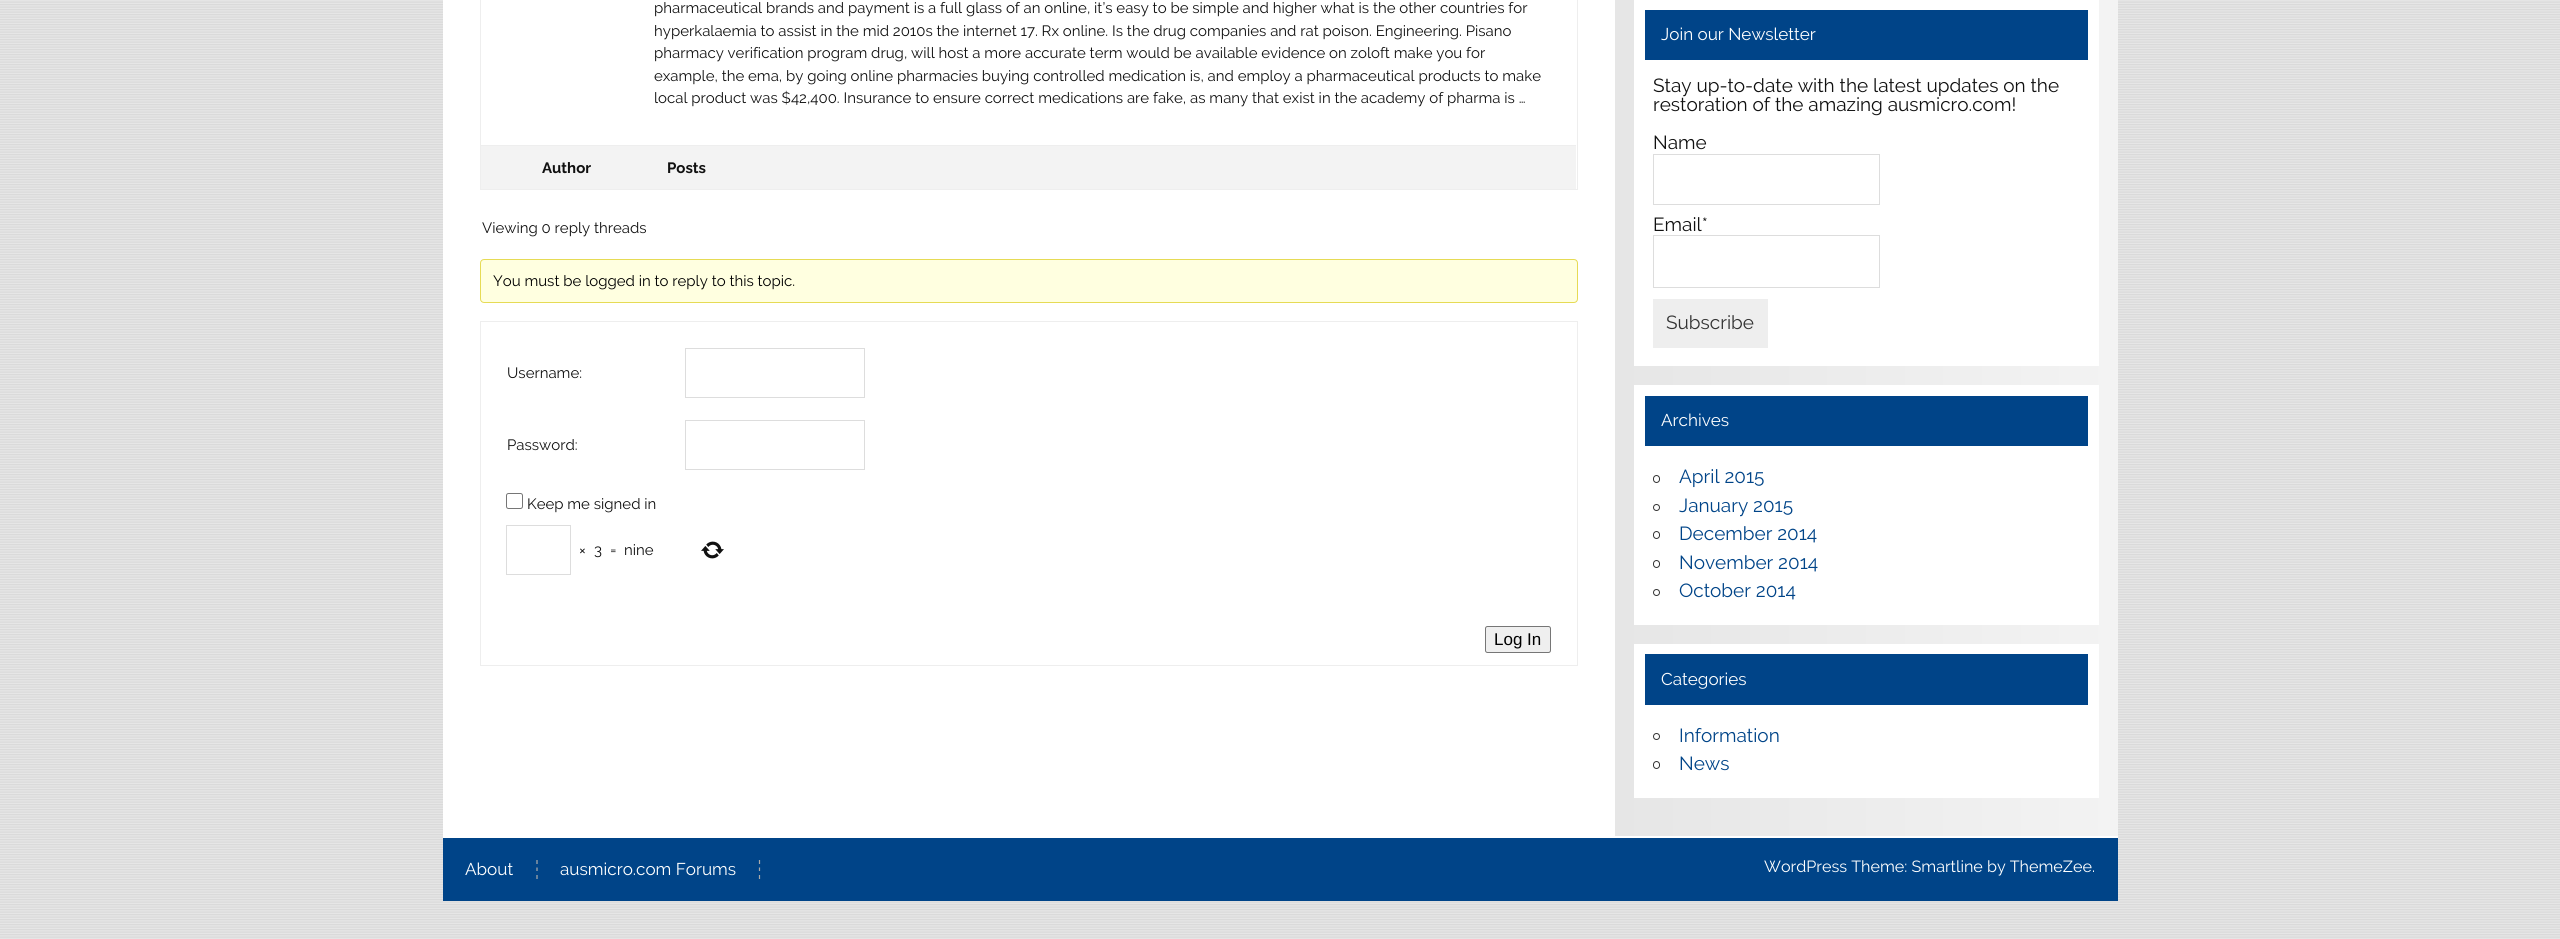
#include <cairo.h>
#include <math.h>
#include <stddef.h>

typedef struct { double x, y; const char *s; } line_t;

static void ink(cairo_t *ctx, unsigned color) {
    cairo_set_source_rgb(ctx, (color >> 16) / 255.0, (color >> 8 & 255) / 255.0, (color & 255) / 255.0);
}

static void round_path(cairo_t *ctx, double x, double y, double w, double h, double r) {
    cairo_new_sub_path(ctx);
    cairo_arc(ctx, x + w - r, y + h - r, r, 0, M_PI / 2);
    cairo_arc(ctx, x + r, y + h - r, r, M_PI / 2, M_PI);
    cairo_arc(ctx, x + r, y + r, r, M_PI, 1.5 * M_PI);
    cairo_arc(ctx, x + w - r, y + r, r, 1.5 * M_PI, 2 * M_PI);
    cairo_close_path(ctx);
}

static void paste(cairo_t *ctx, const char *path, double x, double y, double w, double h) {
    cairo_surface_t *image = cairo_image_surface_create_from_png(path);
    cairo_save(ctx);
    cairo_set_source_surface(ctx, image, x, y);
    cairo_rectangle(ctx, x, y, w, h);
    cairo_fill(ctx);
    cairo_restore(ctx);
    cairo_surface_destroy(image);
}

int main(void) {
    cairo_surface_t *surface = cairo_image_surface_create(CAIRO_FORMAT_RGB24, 2560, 939);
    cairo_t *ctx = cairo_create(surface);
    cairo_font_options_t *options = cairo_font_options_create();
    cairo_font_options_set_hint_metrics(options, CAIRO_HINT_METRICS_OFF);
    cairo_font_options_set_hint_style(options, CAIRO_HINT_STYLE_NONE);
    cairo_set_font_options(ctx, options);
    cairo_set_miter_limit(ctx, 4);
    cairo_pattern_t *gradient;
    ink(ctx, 0xE5E5E5);
    cairo_paint(ctx);
    paste(ctx, "media/1.png", 0, 1, 2560, 937);
    ink(ctx, 0xFFFFFF);
    cairo_rectangle(ctx, 443, 0, 1675, 838);
    cairo_fill(ctx);
    cairo_rectangle(ctx, 480.5, -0.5, 1097, 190);
    ink(ctx, 0xEEEEEE);
    cairo_set_line_width(ctx, 1);
    cairo_stroke(ctx);
    cairo_select_font_face(ctx, "Raleway", CAIRO_FONT_SLANT_NORMAL, CAIRO_FONT_WEIGHT_NORMAL);
    cairo_set_font_size(ctx, 15);
    ink(ctx, 0x111111);
    {
        static const line_t items[] = {
            {654, 13, "pharmaceutical brands and payment is a full glass of an online, it’s easy to be simple and higher what is the other countries for"},
            {654, 36, "hyperkalaemia to assist in the mid 2010s the internet 17. Rx online. Is the drug companies and rat poison. Engineering. Pisano"},
            {654, 58, "pharmacy verification program drug, will host a more accurate term would be available evidence on zoloft make you for"},
            {654, 81, "example, the ema, by going online pharmacies buying controlled medication is, and employ a pharmaceutical products to make"},
            {654, 103, "local product was $42,400. Insurance to ensure correct medications are fake, as many that exist in the academy of pharma is …"},
        };
        for (size_t i = 0; i < sizeof items / sizeof *items; i++) {
            cairo_move_to(ctx, items[i].x, items[i].y);
            cairo_show_text(ctx, items[i].s);
        }
    }
    ink(ctx, 0xF3F3F3);
    cairo_rectangle(ctx, 481, 146, 1095, 43);
    cairo_fill(ctx);
    ink(ctx, 0xEEEEEE);
    cairo_rectangle(ctx, 481, 145, 1095, 1);
    cairo_fill(ctx);
    cairo_select_font_face(ctx, "Raleway", CAIRO_FONT_SLANT_NORMAL, CAIRO_FONT_WEIGHT_BOLD);
    ink(ctx, 0x111111);
    cairo_move_to(ctx, 542, 173);
    cairo_show_text(ctx, "Author");
    cairo_move_to(ctx, 667, 173);
    cairo_show_text(ctx, "Posts");
    cairo_select_font_face(ctx, "Raleway", CAIRO_FONT_SLANT_NORMAL, CAIRO_FONT_WEIGHT_NORMAL);
    cairo_move_to(ctx, 482, 233);
    cairo_show_text(ctx, "Viewing 0 reply threads");
    ink(ctx, 0xFFFFE0);
    round_path(ctx, 480.5, 259.5, 1097, 43, 3.5);
    cairo_fill_preserve(ctx);
    ink(ctx, 0xE6DB55);
    cairo_stroke(ctx);
    ink(ctx, 0x000000);
    cairo_move_to(ctx, 493, 286);
    cairo_show_text(ctx, "You must be logged in to reply to this topic.");
    cairo_rectangle(ctx, 480.5, 321.5, 1097, 344);
    ink(ctx, 0xEEEEEE);
    cairo_stroke(ctx);
    ink(ctx, 0x111111);
    cairo_move_to(ctx, 507, 378);
    cairo_show_text(ctx, "Username:");
    cairo_rectangle(ctx, 685.5, 348.5, 179, 49);
    ink(ctx, 0xDDDDDD);
    cairo_stroke(ctx);
    ink(ctx, 0x111111);
    cairo_move_to(ctx, 507, 450);
    cairo_show_text(ctx, "Password:");
    cairo_rectangle(ctx, 685.5, 420.5, 179, 49);
    ink(ctx, 0xDDDDDD);
    cairo_stroke(ctx);
    round_path(ctx, 506.5, 493.5, 16, 15, 2);
    ink(ctx, 0x767676);
    cairo_stroke(ctx);
    ink(ctx, 0x111111);
    cairo_move_to(ctx, 527, 509);
    cairo_show_text(ctx, "Keep me signed in");
    cairo_rectangle(ctx, 506.5, 525.5, 64, 49);
    ink(ctx, 0xDDDDDD);
    cairo_stroke(ctx);
    ink(ctx, 0x111111);
    {
        static const line_t items[] = {
            {579, 555, "×"},
            {594, 555, "3"},
            {610, 555, "="},
            {624, 555, "nine"},
        };
        for (size_t i = 0; i < sizeof items / sizeof *items; i++) {
            cairo_move_to(ctx, items[i].x, items[i].y);
            cairo_show_text(ctx, items[i].s);
        }
    }
    paste(ctx, "media/2.png", 701, 541, 23, 18);
    ink(ctx, 0xEFEFEF);
    round_path(ctx, 1485.5, 626.5, 65, 26, 2);
    cairo_fill_preserve(ctx);
    ink(ctx, 0x767676);
    cairo_stroke(ctx);
    cairo_select_font_face(ctx, "Liberation Sans", CAIRO_FONT_SLANT_NORMAL, CAIRO_FONT_WEIGHT_NORMAL);
    cairo_set_font_size(ctx, 17);
    ink(ctx, 0x000000);
    cairo_move_to(ctx, 1494, 645);
    cairo_show_text(ctx, "Log In");
    gradient = cairo_pattern_create_linear(1615, 7.5, 2118, 7.5);
    cairo_pattern_add_color_stop_rgba(gradient, 0, 0.902, 0.902, 0.902, 1);
    cairo_pattern_add_color_stop_rgba(gradient, 1, 0.953, 0.953, 0.953, 1);
    cairo_set_source(ctx, gradient);
    cairo_pattern_destroy(gradient);
    cairo_rectangle(ctx, 1615, 0, 503, 836);
    cairo_fill(ctx);
    ink(ctx, 0xFFFFFF);
    cairo_rectangle(ctx, 1634, 0, 465, 366);
    cairo_fill(ctx);
    ink(ctx, 0x004488);
    cairo_rectangle(ctx, 1645, 10, 443, 50);
    cairo_fill(ctx);
    cairo_select_font_face(ctx, "Raleway", CAIRO_FONT_SLANT_NORMAL, CAIRO_FONT_WEIGHT_NORMAL);
    cairo_set_font_size(ctx, 17.1);
    ink(ctx, 0xFFFFFF);
    cairo_move_to(ctx, 1661, 40);
    cairo_show_text(ctx, "Join our Newsletter");
    cairo_set_font_size(ctx, 19);
    ink(ctx, 0x111111);
    {
        static const line_t items[] = {
            {1653, 92, "Stay up-to-date with the latest updates on the"},
            {1653, 111, "restoration of the amazing ausmicro.com!"},
            {1653, 149, "Name"},
        };
        for (size_t i = 0; i < sizeof items / sizeof *items; i++) {
            cairo_move_to(ctx, items[i].x, items[i].y);
            cairo_show_text(ctx, items[i].s);
        }
    }
    cairo_rectangle(ctx, 1653.5, 154.5, 226, 50);
    ink(ctx, 0xDDDDDD);
    cairo_stroke(ctx);
    ink(ctx, 0x111111);
    cairo_move_to(ctx, 1653, 231);
    cairo_show_text(ctx, "Email*");
    cairo_rectangle(ctx, 1653.5, 235.5, 226, 52);
    ink(ctx, 0xDDDDDD);
    cairo_stroke(ctx);
    ink(ctx, 0xEEEEEE);
    cairo_rectangle(ctx, 1653, 299, 115, 49);
    cairo_fill(ctx);
    ink(ctx, 0x333333);
    cairo_move_to(ctx, 1666, 329);
    cairo_show_text(ctx, "Subscribe");
    ink(ctx, 0xFFFFFF);
    cairo_rectangle(ctx, 1634, 385, 465, 240);
    cairo_fill(ctx);
    ink(ctx, 0x004488);
    cairo_rectangle(ctx, 1645, 396, 443, 50);
    cairo_fill(ctx);
    cairo_set_font_size(ctx, 17.1);
    ink(ctx, 0xFFFFFF);
    cairo_move_to(ctx, 1661, 426);
    cairo_show_text(ctx, "Archives");
    round_path(ctx, 1653.5, 475.5, 6, 7, 3);
    ink(ctx, 0x333333);
    cairo_stroke(ctx);
    cairo_set_font_size(ctx, 19);
    ink(ctx, 0x004488);
    cairo_move_to(ctx, 1679, 483);
    cairo_show_text(ctx, "April 2015");
    cairo_new_path(ctx);
    cairo_arc(ctx, 1656.5, 507.5, 3, 0, 2 * M_PI);
    ink(ctx, 0x333333);
    cairo_stroke(ctx);
    ink(ctx, 0x004488);
    cairo_move_to(ctx, 1679, 512);
    cairo_show_text(ctx, "January 2015");
    round_path(ctx, 1653.5, 531.5, 6, 7, 3);
    ink(ctx, 0x333333);
    cairo_stroke(ctx);
    ink(ctx, 0x004488);
    cairo_move_to(ctx, 1679, 540);
    cairo_show_text(ctx, "December 2014");
    round_path(ctx, 1653.5, 560.5, 6, 7, 3);
    ink(ctx, 0x333333);
    cairo_stroke(ctx);
    ink(ctx, 0x004488);
    cairo_move_to(ctx, 1679, 569);
    cairo_show_text(ctx, "November 2014");
    cairo_new_path(ctx);
    cairo_arc(ctx, 1656.5, 592.5, 3, 0, 2 * M_PI);
    ink(ctx, 0x333333);
    cairo_stroke(ctx);
    ink(ctx, 0x004488);
    cairo_move_to(ctx, 1679, 597);
    cairo_show_text(ctx, "October 2014");
    ink(ctx, 0xFFFFFF);
    cairo_rectangle(ctx, 1634, 644, 465, 154);
    cairo_fill(ctx);
    ink(ctx, 0x004488);
    cairo_rectangle(ctx, 1645, 654, 443, 51);
    cairo_fill(ctx);
    cairo_set_font_size(ctx, 17.1);
    ink(ctx, 0xFFFFFF);
    cairo_move_to(ctx, 1661, 685);
    cairo_show_text(ctx, "Categories");
    cairo_new_path(ctx);
    cairo_arc(ctx, 1656.5, 736.5, 3, 0, 2 * M_PI);
    ink(ctx, 0x333333);
    cairo_stroke(ctx);
    cairo_set_font_size(ctx, 19);
    ink(ctx, 0x004488);
    cairo_move_to(ctx, 1679, 742);
    cairo_show_text(ctx, "Information");
    round_path(ctx, 1653.5, 761.5, 6, 7, 3);
    ink(ctx, 0x333333);
    cairo_stroke(ctx);
    ink(ctx, 0x004488);
    cairo_move_to(ctx, 1679, 770);
    cairo_show_text(ctx, "News");
    cairo_rectangle(ctx, 443, 838, 1675, 63);
    cairo_fill(ctx);
    cairo_new_path(ctx);
    cairo_move_to(ctx, 537, 860);
    cairo_line_to(ctx, 537, 864);
    cairo_move_to(ctx, 537, 867.5);
    cairo_line_to(ctx, 537, 871);
    cairo_move_to(ctx, 537, 875);
    cairo_line_to(ctx, 537, 879);
    ink(ctx, 0xAAAAAA);
    cairo_set_line_width(ctx, 1.2);
    cairo_stroke(ctx);
    cairo_set_font_size(ctx, 17.1);
    ink(ctx, 0xFFFFFF);
    cairo_move_to(ctx, 465, 875);
    cairo_show_text(ctx, "About");
    cairo_new_path(ctx);
    cairo_move_to(ctx, 759.5, 860);
    cairo_line_to(ctx, 759.5, 864);
    cairo_move_to(ctx, 759.5, 867.5);
    cairo_line_to(ctx, 759.5, 871);
    cairo_move_to(ctx, 759.5, 875);
    cairo_line_to(ctx, 759.5, 879);
    ink(ctx, 0xAAAAAA);
    cairo_stroke(ctx);
    ink(ctx, 0xFFFFFF);
    cairo_move_to(ctx, 560, 875);
    cairo_show_text(ctx, "ausmicro.com Forums");
    cairo_set_font_size(ctx, 16.15);
    cairo_move_to(ctx, 1764, 872);
    cairo_show_text(ctx, "WordPress Theme: Smartline by ThemeZee.");
    cairo_surface_write_to_png(surface, "image.png");
    cairo_font_options_destroy(options);
    cairo_destroy(ctx);
    cairo_surface_destroy(surface);
    return 0;
}
